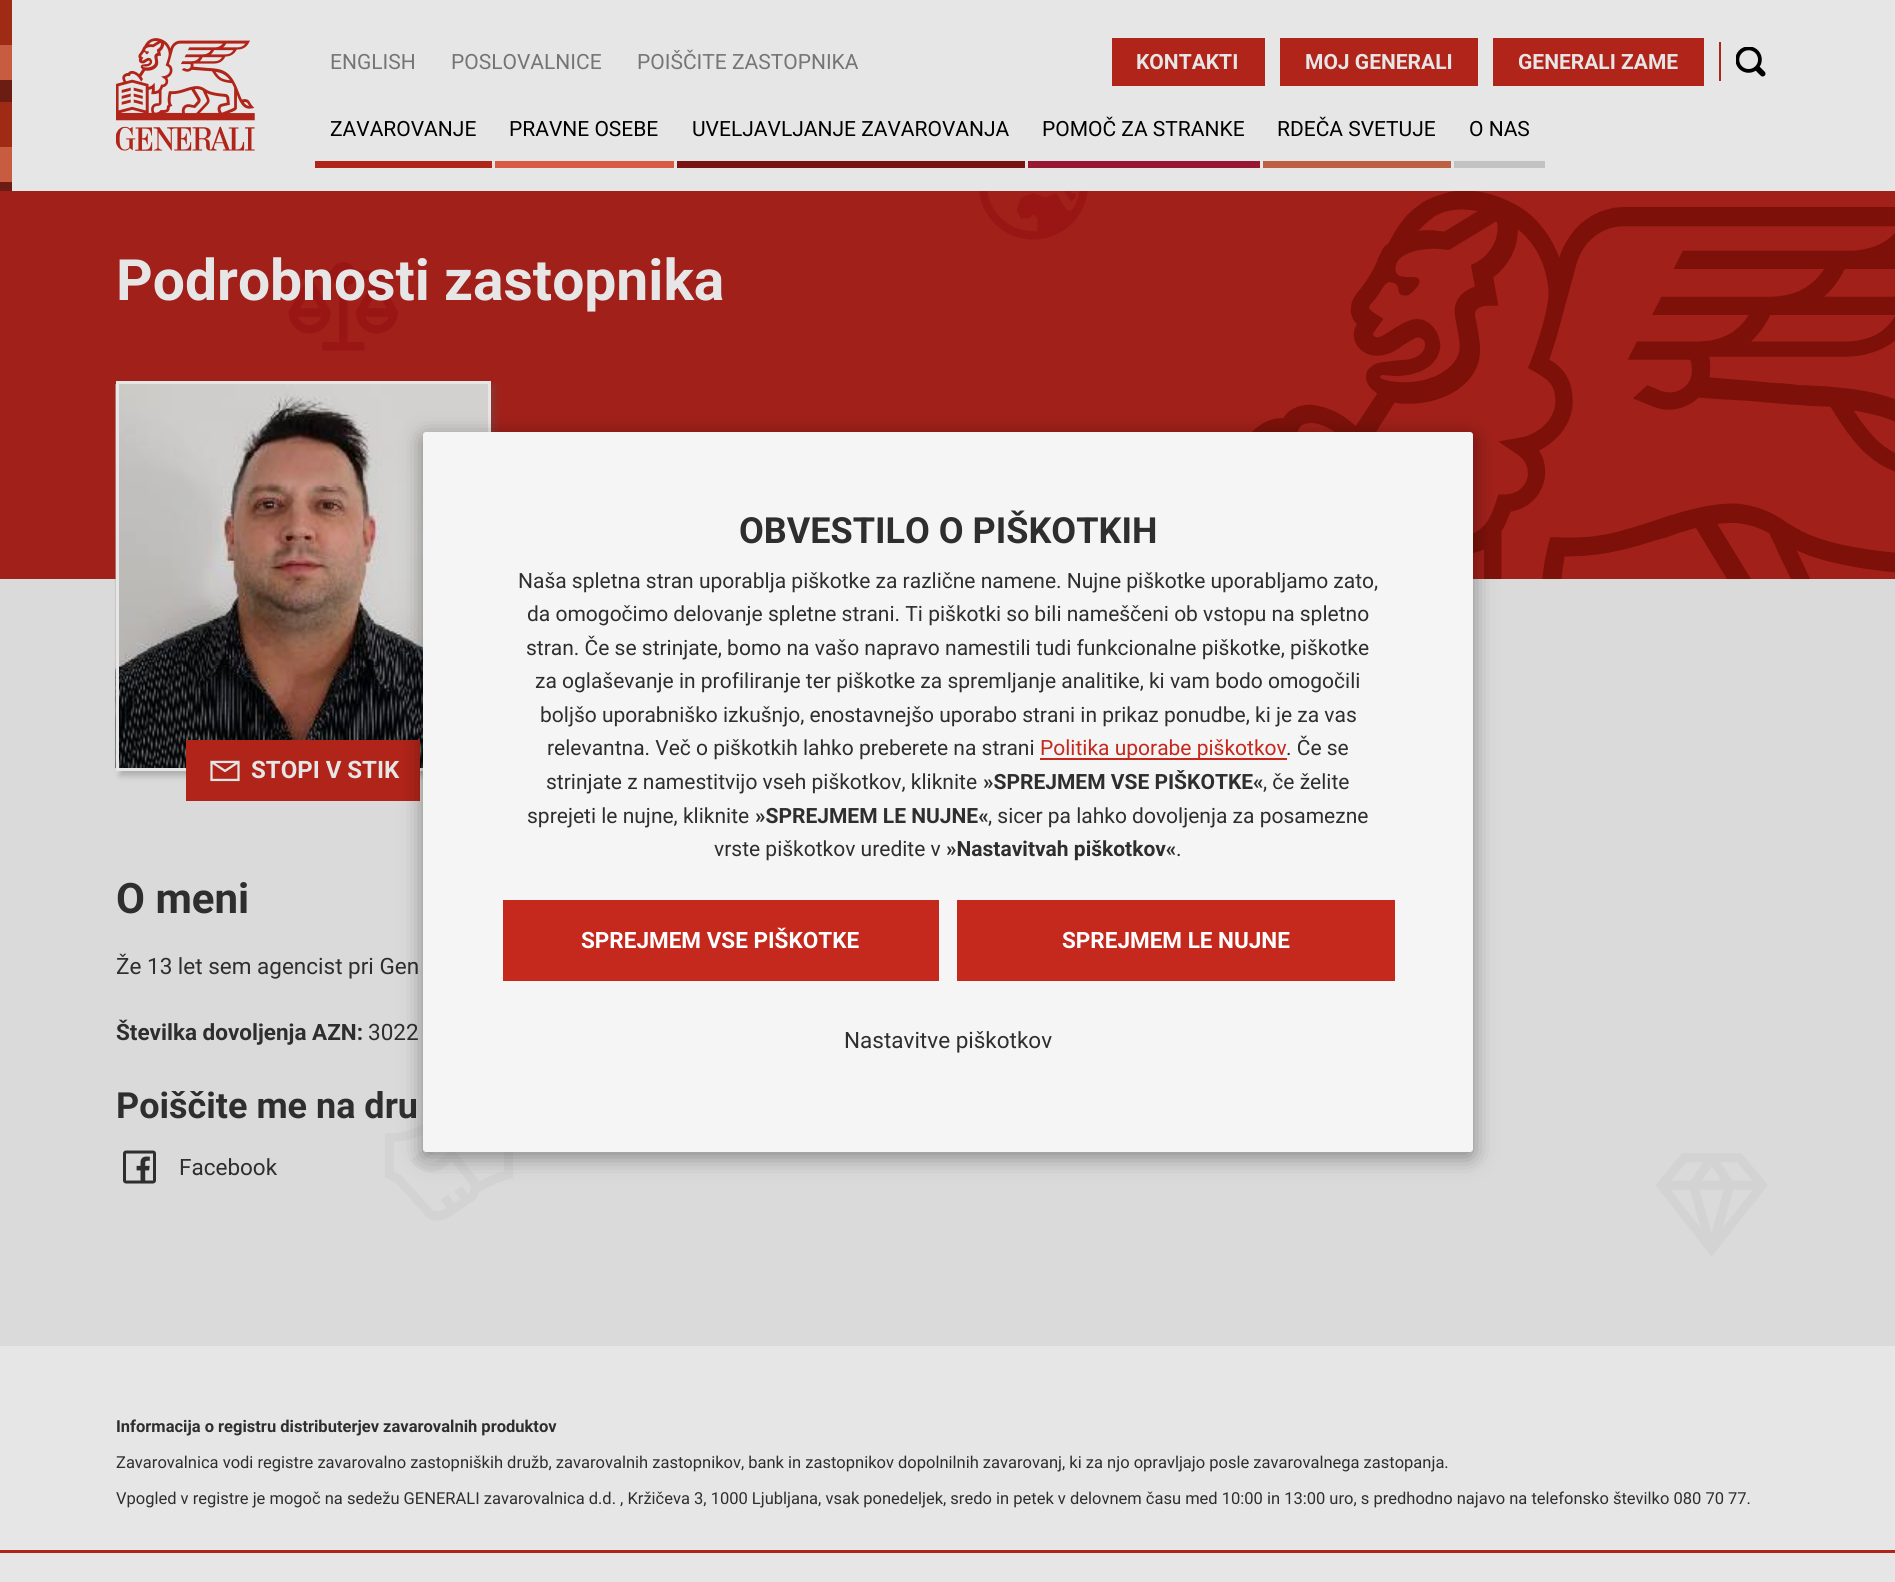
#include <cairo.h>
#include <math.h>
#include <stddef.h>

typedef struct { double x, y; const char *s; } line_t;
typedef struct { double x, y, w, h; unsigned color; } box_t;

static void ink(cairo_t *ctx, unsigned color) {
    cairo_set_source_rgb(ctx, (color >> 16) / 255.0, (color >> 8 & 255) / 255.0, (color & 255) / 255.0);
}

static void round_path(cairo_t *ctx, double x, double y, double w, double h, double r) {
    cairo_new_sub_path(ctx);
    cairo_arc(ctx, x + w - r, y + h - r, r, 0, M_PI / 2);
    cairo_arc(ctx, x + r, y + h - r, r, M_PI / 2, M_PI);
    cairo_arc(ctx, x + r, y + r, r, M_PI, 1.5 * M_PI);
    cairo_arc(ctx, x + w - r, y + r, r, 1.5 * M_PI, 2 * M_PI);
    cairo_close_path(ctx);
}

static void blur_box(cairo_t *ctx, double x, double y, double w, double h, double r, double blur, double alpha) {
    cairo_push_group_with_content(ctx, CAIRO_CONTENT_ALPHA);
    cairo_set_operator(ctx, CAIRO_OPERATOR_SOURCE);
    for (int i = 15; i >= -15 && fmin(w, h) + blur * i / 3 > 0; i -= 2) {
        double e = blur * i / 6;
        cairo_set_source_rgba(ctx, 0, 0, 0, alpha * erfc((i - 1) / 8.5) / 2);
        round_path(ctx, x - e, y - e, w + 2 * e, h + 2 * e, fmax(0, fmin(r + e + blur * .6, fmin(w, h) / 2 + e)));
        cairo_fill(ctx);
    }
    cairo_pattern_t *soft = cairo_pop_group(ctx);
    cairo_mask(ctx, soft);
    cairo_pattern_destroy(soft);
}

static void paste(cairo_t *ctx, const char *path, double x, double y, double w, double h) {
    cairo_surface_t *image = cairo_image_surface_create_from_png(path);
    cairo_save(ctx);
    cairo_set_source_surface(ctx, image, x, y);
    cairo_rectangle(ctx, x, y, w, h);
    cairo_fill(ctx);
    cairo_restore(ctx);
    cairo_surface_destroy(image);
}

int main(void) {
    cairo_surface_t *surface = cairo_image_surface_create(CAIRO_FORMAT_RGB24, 1895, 1582);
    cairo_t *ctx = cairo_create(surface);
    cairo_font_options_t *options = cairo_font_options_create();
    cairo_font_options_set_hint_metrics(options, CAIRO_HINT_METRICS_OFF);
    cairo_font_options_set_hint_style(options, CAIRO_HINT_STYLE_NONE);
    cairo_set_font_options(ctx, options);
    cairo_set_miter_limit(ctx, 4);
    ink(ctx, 0xE6E6E6);
    cairo_paint(ctx);
    {
        static const box_t items[] = {
            {0, 0, 12, 45, 0x9F2B14},
            {0, 102, 12, 45, 0x9F2B14},
            {0, 45, 12, 35, 0xC75C40},
            {0, 80, 12, 22, 0x6B1D13},
            {0, 147, 12, 35, 0xC75C40},
            {0, 182, 12, 9, 0x6B1D13},
        };
        for (size_t i = 0; i < sizeof items / sizeof *items; i++) {
            ink(ctx, items[i].color);
            cairo_rectangle(ctx, items[i].x, items[i].y, items[i].w, items[i].h);
            cairo_fill(ctx);
        }
    }
    paste(ctx, "media/1.png", 116, 38, 139, 113);
    cairo_select_font_face(ctx, "Roboto", CAIRO_FONT_SLANT_NORMAL, CAIRO_FONT_WEIGHT_NORMAL);
    cairo_set_font_size(ctx, 21);
    ink(ctx, 0x757575);
    {
        static const line_t items[] = {
            {330, 69, "ENGLISH"},
            {451, 69, "POSLOVALNICE"},
            {637, 69, "POIŠČITE ZASTOPNIKA"},
        };
        for (size_t i = 0; i < sizeof items / sizeof *items; i++) {
            cairo_move_to(ctx, items[i].x, items[i].y);
            cairo_show_text(ctx, items[i].s);
        }
    }
    ink(ctx, 0xB12419);
    cairo_rectangle(ctx, 1112, 38, 153, 48);
    cairo_fill(ctx);
    cairo_select_font_face(ctx, "Roboto", CAIRO_FONT_SLANT_NORMAL, CAIRO_FONT_WEIGHT_BOLD);
    ink(ctx, 0xE6E6E6);
    cairo_move_to(ctx, 1136, 69);
    cairo_show_text(ctx, "KONTAKTI");
    ink(ctx, 0xB12419);
    cairo_rectangle(ctx, 1280, 38, 198, 48);
    cairo_fill(ctx);
    ink(ctx, 0xE6E6E6);
    cairo_move_to(ctx, 1305, 69);
    cairo_show_text(ctx, "MOJ GENERALI");
    ink(ctx, 0xB12419);
    cairo_rectangle(ctx, 1493, 38, 211, 48);
    cairo_fill(ctx);
    ink(ctx, 0xE6E6E6);
    cairo_move_to(ctx, 1518, 69);
    cairo_show_text(ctx, "GENERALI ZAME");
    ink(ctx, 0xB12419);
    cairo_rectangle(ctx, 1719, 42, 2, 39);
    cairo_fill(ctx);
    paste(ctx, "media/2.png", 1736, 47, 30, 30);
    cairo_rectangle(ctx, 315, 161, 177, 7);
    cairo_fill(ctx);
    cairo_select_font_face(ctx, "Roboto", CAIRO_FONT_SLANT_NORMAL, CAIRO_FONT_WEIGHT_NORMAL);
    ink(ctx, 0x000000);
    cairo_move_to(ctx, 330, 136);
    cairo_show_text(ctx, "ZAVAROVANJE");
    ink(ctx, 0xD95A43);
    cairo_rectangle(ctx, 495, 161, 179, 7);
    cairo_fill(ctx);
    ink(ctx, 0x000000);
    cairo_move_to(ctx, 509, 136);
    cairo_show_text(ctx, "PRAVNE OSEBE");
    ink(ctx, 0x781512);
    cairo_rectangle(ctx, 677, 161, 348, 7);
    cairo_fill(ctx);
    ink(ctx, 0x000000);
    cairo_move_to(ctx, 692, 136);
    cairo_show_text(ctx, "UVELJAVLJANJE ZAVAROVANJA");
    ink(ctx, 0x971832);
    cairo_rectangle(ctx, 1028, 161, 232, 7);
    cairo_fill(ctx);
    ink(ctx, 0x000000);
    cairo_move_to(ctx, 1042, 136);
    cairo_show_text(ctx, "POMOČ ZA STRANKE");
    ink(ctx, 0xBD5F41);
    cairo_rectangle(ctx, 1263, 161, 188, 7);
    cairo_fill(ctx);
    ink(ctx, 0x000000);
    cairo_move_to(ctx, 1277, 136);
    cairo_show_text(ctx, "RDEČA SVETUJE");
    ink(ctx, 0xC2C2C2);
    cairo_rectangle(ctx, 1454, 161, 91, 7);
    cairo_fill(ctx);
    ink(ctx, 0x000000);
    cairo_move_to(ctx, 1469, 136);
    cairo_show_text(ctx, "O NAS");
    ink(ctx, 0xA2201A);
    cairo_rectangle(ctx, 0, 191, 1895, 388);
    cairo_fill(ctx);
    paste(ctx, "media/3.png", 288, 191, 1607, 388);
    cairo_select_font_face(ctx, "Roboto", CAIRO_FONT_SLANT_NORMAL, CAIRO_FONT_WEIGHT_BOLD);
    cairo_set_font_size(ctx, 57);
    ink(ctx, 0xE6E6E6);
    cairo_move_to(ctx, 116, 300);
    cairo_show_text(ctx, "Podrobnosti zastopnika");
    ink(ctx, 0xDADADA);
    cairo_rectangle(ctx, 0, 579, 1895, 767);
    cairo_fill(ctx);
    ink(ctx, 0x5D5D5D);
    blur_box(ctx, 120, 386, 375, 390, 0, 3, 0.35);
    paste(ctx, "media/4.png", 115, 384, 373, 384);
    cairo_rectangle(ctx, 117.5, 382.5, 372, 387);
    ink(ctx, 0xE6E6E6);
    cairo_set_line_width(ctx, 3);
    cairo_stroke(ctx);
    ink(ctx, 0xB12419);
    cairo_rectangle(ctx, 187.5, 741.5, 231, 58);
    cairo_fill_preserve(ctx);
    cairo_stroke(ctx);
    paste(ctx, "media/5.png", 210, 760, 30, 22);
    cairo_set_font_size(ctx, 24);
    ink(ctx, 0xE6E6E6);
    cairo_move_to(ctx, 251, 778);
    cairo_show_text(ctx, "STOPI V STIK");
    paste(ctx, "media/6.png", 384, 1124, 1384, 132);
    cairo_set_font_size(ctx, 42);
    ink(ctx, 0x2E2E2E);
    cairo_move_to(ctx, 116, 913);
    cairo_show_text(ctx, "O meni");
    cairo_select_font_face(ctx, "Roboto", CAIRO_FONT_SLANT_NORMAL, CAIRO_FONT_WEIGHT_NORMAL);
    cairo_set_font_size(ctx, 22.5);
    cairo_move_to(ctx, 116, 974);
    cairo_show_text(ctx, "Že 13 let sem agencist pri Gen");
    cairo_select_font_face(ctx, "Roboto", CAIRO_FONT_SLANT_NORMAL, CAIRO_FONT_WEIGHT_BOLD);
    cairo_move_to(ctx, 116, 1040);
    cairo_show_text(ctx, "Številka dovoljenja AZN:");
    cairo_select_font_face(ctx, "Roboto", CAIRO_FONT_SLANT_NORMAL, CAIRO_FONT_WEIGHT_NORMAL);
    cairo_move_to(ctx, 368, 1040);
    cairo_show_text(ctx, "3022");
    cairo_select_font_face(ctx, "Roboto", CAIRO_FONT_SLANT_NORMAL, CAIRO_FONT_WEIGHT_BOLD);
    cairo_set_font_size(ctx, 36);
    cairo_move_to(ctx, 116, 1118);
    cairo_show_text(ctx, "Poiščite me na dru");
    paste(ctx, "media/7.png", 123, 1150, 33, 34);
    cairo_select_font_face(ctx, "Roboto", CAIRO_FONT_SLANT_NORMAL, CAIRO_FONT_WEIGHT_NORMAL);
    cairo_set_font_size(ctx, 22.5);
    cairo_move_to(ctx, 179, 1175);
    cairo_show_text(ctx, "Facebook");
    cairo_select_font_face(ctx, "Roboto", CAIRO_FONT_SLANT_NORMAL, CAIRO_FONT_WEIGHT_BOLD);
    cairo_set_font_size(ctx, 16.5);
    cairo_move_to(ctx, 116, 1432);
    cairo_show_text(ctx, "Informacija o registru distributerjev zavarovalnih produktov");
    cairo_select_font_face(ctx, "Roboto", CAIRO_FONT_SLANT_NORMAL, CAIRO_FONT_WEIGHT_NORMAL);
    cairo_move_to(ctx, 116, 1468);
    cairo_show_text(ctx, "Zavarovalnica vodi registre zavarovalno zastopniških družb, zavarovalnih zastopnikov, bank in zastopnikov dopolnilnih zavarovanj, ki za njo opravljajo posle zavarovalnega zastopanja.");
    cairo_move_to(ctx, 116, 1504);
    cairo_show_text(ctx, "Vpogled v registre je mogoč na sedežu GENERALI zavarovalnica d.d. , Kržičeva 3, 1000 Ljubljana, vsak ponedeljek, sredo in petek v delovnem času med 10:00 in 13:00 uro, s predhodno najavo na telefonsko številko 080 70 77.");
    ink(ctx, 0x000000);
    blur_box(ctx, 423, 437, 1050, 720, 3, 11, 0.4);
    ink(ctx, 0xF5F5F5);
    round_path(ctx, 423, 432, 1050, 720, 3);
    cairo_fill(ctx);
    cairo_select_font_face(ctx, "Roboto", CAIRO_FONT_SLANT_NORMAL, CAIRO_FONT_WEIGHT_BOLD);
    cairo_set_font_size(ctx, 36);
    ink(ctx, 0x2E2E2E);
    cairo_move_to(ctx, 739, 543);
    cairo_show_text(ctx, "OBVESTILO O PIŠKOTKIH");
    cairo_select_font_face(ctx, "Roboto", CAIRO_FONT_SLANT_NORMAL, CAIRO_FONT_WEIGHT_NORMAL);
    cairo_set_font_size(ctx, 21);
    {
        static const line_t items[] = {
            {518, 588, "Naša spletna stran uporablja piškotke za različne namene. Nujne piškotke uporabljamo zato,"},
            {527, 621, "da omogočimo delovanje spletne strani. Ti piškotki so bili nameščeni ob vstopu na spletno"},
            {526, 655, "stran. Če se strinjate, bomo na vašo napravo namestili tudi funkcionalne piškotke, piškotke"},
            {535, 688, "za oglaševanje in profiliranje ter piškotke za spremljanje analitike, ki vam bodo omogočili"},
            {540, 722, "boljšo uporabniško izkušnjo, enostavnejšo uporabo strani in prikaz ponudbe, ki je za vas"},
            {547, 755, "relevantna. Več o piškotkih lahko preberete na strani"},
        };
        for (size_t i = 0; i < sizeof items / sizeof *items; i++) {
            cairo_move_to(ctx, items[i].x, items[i].y);
            cairo_show_text(ctx, items[i].s);
        }
    }
    ink(ctx, 0xC5281C);
    cairo_rectangle(ctx, 1040, 758, 247, 2);
    cairo_fill(ctx);
    cairo_move_to(ctx, 1040, 755);
    cairo_show_text(ctx, "Politika uporabe piškotkov");
    ink(ctx, 0x2E2E2E);
    cairo_move_to(ctx, 1286, 755);
    cairo_show_text(ctx, ". Če se");
    cairo_move_to(ctx, 546, 789);
    cairo_show_text(ctx, "strinjate z namestitvijo vseh piškotkov, kliknite");
    cairo_select_font_face(ctx, "Roboto", CAIRO_FONT_SLANT_NORMAL, CAIRO_FONT_WEIGHT_BOLD);
    cairo_move_to(ctx, 983, 789);
    cairo_show_text(ctx, "»SPREJMEM VSE PIŠKOTKE«");
    cairo_select_font_face(ctx, "Roboto", CAIRO_FONT_SLANT_NORMAL, CAIRO_FONT_WEIGHT_NORMAL);
    cairo_move_to(ctx, 1263, 789);
    cairo_show_text(ctx, ", če želite");
    cairo_move_to(ctx, 527, 823);
    cairo_show_text(ctx, "sprejeti le nujne, kliknite");
    cairo_select_font_face(ctx, "Roboto", CAIRO_FONT_SLANT_NORMAL, CAIRO_FONT_WEIGHT_BOLD);
    cairo_move_to(ctx, 755, 823);
    cairo_show_text(ctx, "»SPREJMEM LE NUJNE«");
    cairo_select_font_face(ctx, "Roboto", CAIRO_FONT_SLANT_NORMAL, CAIRO_FONT_WEIGHT_NORMAL);
    cairo_move_to(ctx, 988, 823);
    cairo_show_text(ctx, ", sicer pa lahko dovoljenja za posamezne");
    cairo_move_to(ctx, 714, 856);
    cairo_show_text(ctx, "vrste piškotkov uredite v");
    cairo_select_font_face(ctx, "Roboto", CAIRO_FONT_SLANT_NORMAL, CAIRO_FONT_WEIGHT_BOLD);
    cairo_move_to(ctx, 946, 856);
    cairo_show_text(ctx, "»Nastavitvah piškotkov«");
    cairo_select_font_face(ctx, "Roboto", CAIRO_FONT_SLANT_NORMAL, CAIRO_FONT_WEIGHT_NORMAL);
    cairo_move_to(ctx, 1176, 856);
    cairo_show_text(ctx, ".");
    ink(ctx, 0xC5281C);
    cairo_rectangle(ctx, 503, 900, 436, 81);
    cairo_fill(ctx);
    cairo_select_font_face(ctx, "Roboto", CAIRO_FONT_SLANT_NORMAL, CAIRO_FONT_WEIGHT_BOLD);
    cairo_set_font_size(ctx, 22.5);
    ink(ctx, 0xFFFFFF);
    cairo_move_to(ctx, 581, 948);
    cairo_show_text(ctx, "SPREJMEM VSE PIŠKOTKE");
    ink(ctx, 0xC5281C);
    cairo_rectangle(ctx, 957, 900, 438, 81);
    cairo_fill(ctx);
    ink(ctx, 0xFFFFFF);
    cairo_move_to(ctx, 1062, 948);
    cairo_show_text(ctx, "SPREJMEM LE NUJNE");
    cairo_select_font_face(ctx, "Roboto", CAIRO_FONT_SLANT_NORMAL, CAIRO_FONT_WEIGHT_NORMAL);
    ink(ctx, 0x2E2E2E);
    cairo_move_to(ctx, 844, 1048);
    cairo_show_text(ctx, "Nastavitve piškotkov");
    ink(ctx, 0xB12419);
    cairo_rectangle(ctx, 0, 1550, 1895, 3);
    cairo_fill(ctx);
    cairo_surface_write_to_png(surface, "image.png");
    cairo_font_options_destroy(options);
    cairo_destroy(ctx);
    cairo_surface_destroy(surface);
    return 0;
}
